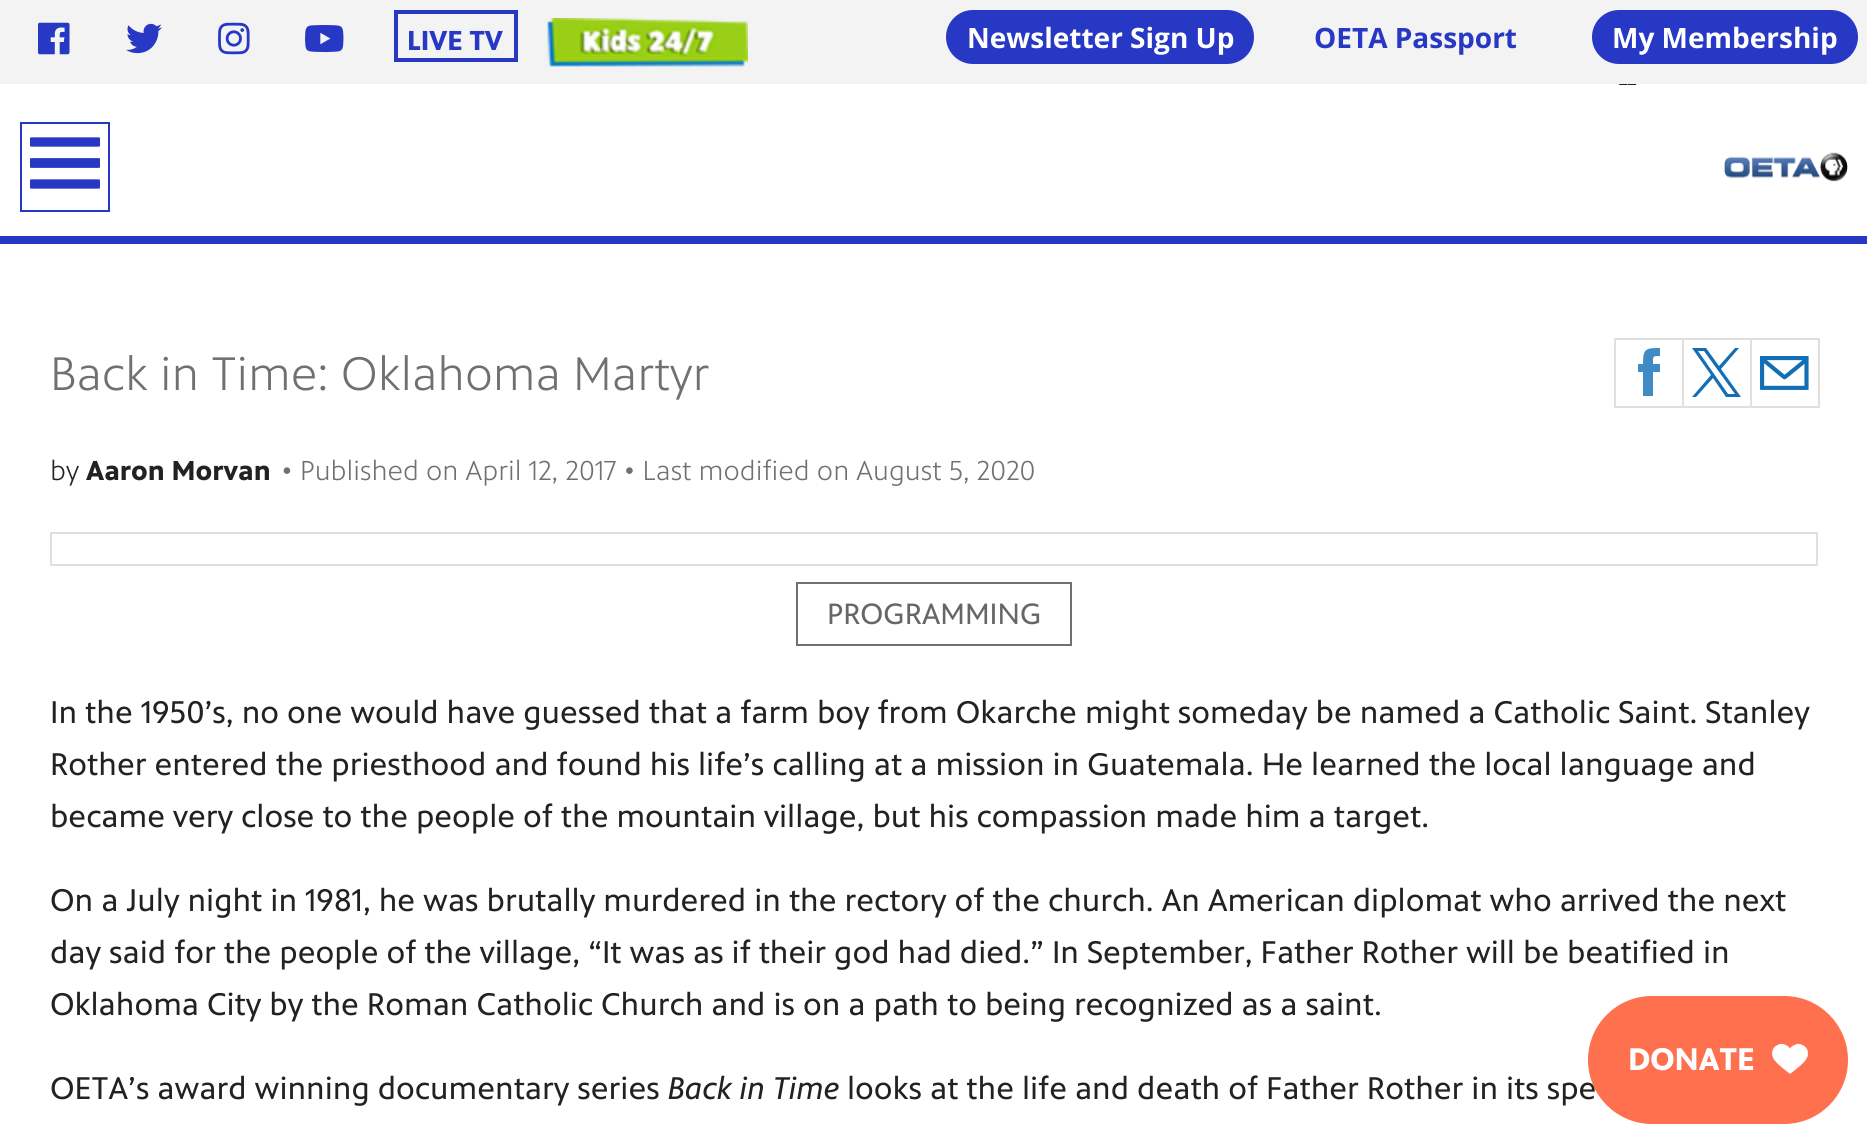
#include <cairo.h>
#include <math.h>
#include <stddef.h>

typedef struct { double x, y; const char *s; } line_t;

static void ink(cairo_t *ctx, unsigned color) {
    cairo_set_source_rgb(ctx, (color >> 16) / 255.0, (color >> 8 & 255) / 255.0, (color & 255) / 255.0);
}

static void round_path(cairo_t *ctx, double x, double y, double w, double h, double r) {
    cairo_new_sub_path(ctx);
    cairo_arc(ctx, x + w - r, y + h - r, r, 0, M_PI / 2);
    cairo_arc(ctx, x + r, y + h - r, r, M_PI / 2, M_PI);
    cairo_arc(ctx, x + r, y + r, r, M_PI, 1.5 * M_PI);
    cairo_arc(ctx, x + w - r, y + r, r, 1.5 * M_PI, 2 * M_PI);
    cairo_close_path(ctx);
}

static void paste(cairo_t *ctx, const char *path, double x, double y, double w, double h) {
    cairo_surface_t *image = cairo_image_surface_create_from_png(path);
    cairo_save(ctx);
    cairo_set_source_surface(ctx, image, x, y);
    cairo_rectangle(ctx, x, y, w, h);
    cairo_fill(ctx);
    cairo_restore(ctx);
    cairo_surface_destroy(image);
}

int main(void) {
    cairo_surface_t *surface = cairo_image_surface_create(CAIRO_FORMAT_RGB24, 1867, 1144);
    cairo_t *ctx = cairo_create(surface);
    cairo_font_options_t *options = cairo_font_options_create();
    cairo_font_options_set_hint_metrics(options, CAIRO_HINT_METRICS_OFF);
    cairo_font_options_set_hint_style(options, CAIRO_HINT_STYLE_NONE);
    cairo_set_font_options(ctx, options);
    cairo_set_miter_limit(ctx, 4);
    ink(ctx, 0xFFFFFF);
    cairo_paint(ctx);
    cairo_select_font_face(ctx, "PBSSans", CAIRO_FONT_SLANT_NORMAL, CAIRO_FONT_WEIGHT_NORMAL);
    cairo_set_font_size(ctx, 20);
    ink(ctx, 0x222222);
    cairo_move_to(ctx, 1619, 82);
    cairo_show_text(ctx, "__");
    ink(ctx, 0xF3F3F3);
    cairo_rectangle(ctx, 0, 0, 1867, 84);
    cairo_fill(ctx);
    paste(ctx, "media/1.png", 38, 22, 32, 33);
    paste(ctx, "media/2.png", 126, 23, 36, 31);
    paste(ctx, "media/3.png", 218, 22, 32, 33);
    paste(ctx, "media/4.png", 305, 25, 39, 27);
    cairo_rectangle(ctx, 396, 12, 120, 48);
    ink(ctx, 0x2638C4);
    cairo_set_line_width(ctx, 4);
    cairo_stroke(ctx);
    cairo_select_font_face(ctx, "PBSSans", CAIRO_FONT_SLANT_NORMAL, CAIRO_FONT_WEIGHT_BOLD);
    cairo_set_font_size(ctx, 28);
    cairo_move_to(ctx, 407, 50);
    cairo_show_text(ctx, "LIVE TV");
    paste(ctx, "media/5.png", 547, 18, 201, 49);
    round_path(ctx, 946, 10, 308, 54, 27);
    cairo_fill(ctx);
    cairo_select_font_face(ctx, "Open Sans", CAIRO_FONT_SLANT_NORMAL, CAIRO_FONT_WEIGHT_BOLD);
    ink(ctx, 0xFFFFFF);
    cairo_move_to(ctx, 967, 48);
    cairo_show_text(ctx, "Newsletter Sign Up");
    ink(ctx, 0x2638C4);
    cairo_move_to(ctx, 1314, 48);
    cairo_show_text(ctx, "OETA Passport");
    round_path(ctx, 1592, 10, 266, 54, 27);
    cairo_fill(ctx);
    ink(ctx, 0xFFFFFF);
    cairo_move_to(ctx, 1612, 48);
    cairo_show_text(ctx, "My Membership");
    ink(ctx, 0x2638C4);
    cairo_rectangle(ctx, 0, 236, 1867, 8);
    cairo_fill(ctx);
    cairo_rectangle(ctx, 21, 123, 88, 88);
    cairo_set_line_width(ctx, 2);
    cairo_stroke(ctx);
    paste(ctx, "media/6.png", 30, 137, 70, 52);
    paste(ctx, "media/7.png", 1724, 152, 124, 30);
    cairo_select_font_face(ctx, "PBSSans", CAIRO_FONT_SLANT_NORMAL, CAIRO_FONT_WEIGHT_NORMAL);
    cairo_set_font_size(ctx, 32);
    ink(ctx, 0x222222);
    cairo_move_to(ctx, 847, 1099);
    cairo_show_text(ctx, "looks at the life and death of Father Rother in its spe");
    ink(ctx, 0xFE704E);
    round_path(ctx, 1588, 996, 260, 128, 64);
    cairo_fill(ctx);
    cairo_select_font_face(ctx, "PBSSans", CAIRO_FONT_SLANT_NORMAL, CAIRO_FONT_WEIGHT_BOLD);
    ink(ctx, 0xFFFFFF);
    cairo_move_to(ctx, 1628, 1070);
    cairo_show_text(ctx, "DONATE");
    paste(ctx, "media/8.png", 1772, 1043, 36, 31);
    cairo_select_font_face(ctx, "PBS Sans Light", CAIRO_FONT_SLANT_NORMAL, CAIRO_FONT_WEIGHT_NORMAL);
    cairo_set_font_size(ctx, 48);
    ink(ctx, 0x707070);
    cairo_move_to(ctx, 50, 390);
    cairo_show_text(ctx, "Back in Time: Oklahoma Martyr");
    cairo_rectangle(ctx, 1615, 339, 68, 68);
    ink(ctx, 0xE0E0E0);
    cairo_stroke(ctx);
    cairo_save(ctx);
    cairo_rectangle(ctx, 1638, 348, 22, 48);
    cairo_clip(ctx);
    ink(ctx, 0x418BC4);
    cairo_set_fill_rule(ctx, CAIRO_FILL_RULE_EVEN_ODD);
    cairo_new_path(ctx);
    cairo_move_to(ctx, 1653, 364);
    cairo_curve_to(ctx, 1653, 356, 1652, 356, 1661, 356);
    cairo_line_to(ctx, 1661, 348);
    cairo_curve_to(ctx, 1646, 348, 1643, 348, 1643, 364);
    cairo_line_to(ctx, 1638, 364);
    cairo_line_to(ctx, 1638, 372);
    cairo_line_to(ctx, 1643, 372);
    cairo_line_to(ctx, 1643, 396);
    cairo_line_to(ctx, 1653, 396);
    cairo_line_to(ctx, 1653, 372);
    cairo_line_to(ctx, 1660, 372);
    cairo_line_to(ctx, 1661, 364);
    cairo_close_path(ctx);
    cairo_fill(ctx);
    cairo_restore(ctx);
    cairo_rectangle(ctx, 1683, 339, 68, 68);
    cairo_stroke(ctx);
    ink(ctx, 0x126EB5);
    cairo_new_path(ctx);
    cairo_move_to(ctx, 1721, 369);
    cairo_line_to(ctx, 1739, 348);
    cairo_line_to(ctx, 1735, 348);
    cairo_line_to(ctx, 1719, 366);
    cairo_line_to(ctx, 1706, 348);
    cairo_line_to(ctx, 1692, 348);
    cairo_line_to(ctx, 1711, 375);
    cairo_line_to(ctx, 1692, 397);
    cairo_line_to(ctx, 1696, 397);
    cairo_line_to(ctx, 1713, 378);
    cairo_line_to(ctx, 1726, 397);
    cairo_line_to(ctx, 1741, 397);
    cairo_move_to(ctx, 1698, 351);
    cairo_line_to(ctx, 1704, 351);
    cairo_line_to(ctx, 1735, 394);
    cairo_line_to(ctx, 1728, 394);
    cairo_fill(ctx);
    cairo_rectangle(ctx, 1751, 339, 68, 68);
    ink(ctx, 0xE0E0E0);
    cairo_stroke(ctx);
    paste(ctx, "media/9.png", 1760, 356, 49, 34);
    cairo_set_font_size(ctx, 28);
    ink(ctx, 0x222222);
    cairo_move_to(ctx, 50, 480);
    cairo_show_text(ctx, "by");
    cairo_select_font_face(ctx, "PBSSans", CAIRO_FONT_SLANT_NORMAL, CAIRO_FONT_WEIGHT_BOLD);
    cairo_move_to(ctx, 86, 480);
    cairo_show_text(ctx, "Aaron Morvan");
    cairo_select_font_face(ctx, "PBS Sans Light", CAIRO_FONT_SLANT_NORMAL, CAIRO_FONT_WEIGHT_NORMAL);
    ink(ctx, 0x707070);
    cairo_move_to(ctx, 281, 480);
    cairo_show_text(ctx, "• Published on April 12, 2017 • Last modified on August 5, 2020");
    cairo_rectangle(ctx, 51, 533, 1766, 32);
    ink(ctx, 0xE0E0E0);
    cairo_stroke(ctx);
    cairo_rectangle(ctx, 797, 583, 274, 62);
    ink(ctx, 0x707070);
    cairo_stroke(ctx);
    cairo_select_font_face(ctx, "PBSSans", CAIRO_FONT_SLANT_NORMAL, CAIRO_FONT_WEIGHT_NORMAL);
    cairo_set_font_size(ctx, 30);
    ink(ctx, 0x666666);
    cairo_move_to(ctx, 827, 624);
    cairo_show_text(ctx, "PROGRAMMING");
    cairo_set_font_size(ctx, 32);
    ink(ctx, 0x222222);
    {
        static const line_t items[] = {
            {50, 723, "In the 1950’s, no one would have guessed that a farm boy from Okarche might someday be named a Catholic Saint. Stanley"},
            {50, 775, "Rother entered the priesthood and found his life’s calling at a mission in Guatemala. He learned the local language and"},
            {50, 827, "became very close to the people of the mountain village, but his compassion made him a target."},
            {50, 911, "On a July night in 1981, he was brutally murdered in the rectory of the church. An American diplomat who arrived the next"},
            {50, 963, "day said for the people of the village, “It was as if their god had died.” In September, Father Rother will be beatified in"},
            {50, 1015, "Oklahoma City by the Roman Catholic Church and is on a path to being recognized as a saint."},
            {50, 1099, "OETA’s award winning documentary series"},
        };
        for (size_t i = 0; i < sizeof items / sizeof *items; i++) {
            cairo_move_to(ctx, items[i].x, items[i].y);
            cairo_show_text(ctx, items[i].s);
        }
    }
    cairo_select_font_face(ctx, "PBSSans", CAIRO_FONT_SLANT_ITALIC, CAIRO_FONT_WEIGHT_NORMAL);
    cairo_move_to(ctx, 668, 1099);
    cairo_show_text(ctx, "Back in Time");
    cairo_surface_write_to_png(surface, "image.png");
    cairo_font_options_destroy(options);
    cairo_destroy(ctx);
    cairo_surface_destroy(surface);
    return 0;
}
